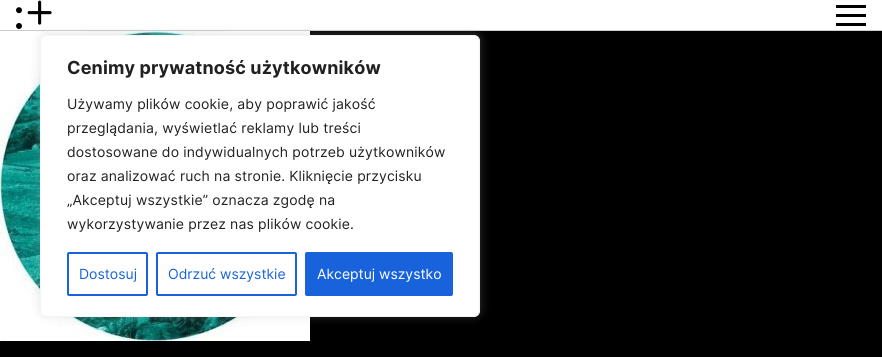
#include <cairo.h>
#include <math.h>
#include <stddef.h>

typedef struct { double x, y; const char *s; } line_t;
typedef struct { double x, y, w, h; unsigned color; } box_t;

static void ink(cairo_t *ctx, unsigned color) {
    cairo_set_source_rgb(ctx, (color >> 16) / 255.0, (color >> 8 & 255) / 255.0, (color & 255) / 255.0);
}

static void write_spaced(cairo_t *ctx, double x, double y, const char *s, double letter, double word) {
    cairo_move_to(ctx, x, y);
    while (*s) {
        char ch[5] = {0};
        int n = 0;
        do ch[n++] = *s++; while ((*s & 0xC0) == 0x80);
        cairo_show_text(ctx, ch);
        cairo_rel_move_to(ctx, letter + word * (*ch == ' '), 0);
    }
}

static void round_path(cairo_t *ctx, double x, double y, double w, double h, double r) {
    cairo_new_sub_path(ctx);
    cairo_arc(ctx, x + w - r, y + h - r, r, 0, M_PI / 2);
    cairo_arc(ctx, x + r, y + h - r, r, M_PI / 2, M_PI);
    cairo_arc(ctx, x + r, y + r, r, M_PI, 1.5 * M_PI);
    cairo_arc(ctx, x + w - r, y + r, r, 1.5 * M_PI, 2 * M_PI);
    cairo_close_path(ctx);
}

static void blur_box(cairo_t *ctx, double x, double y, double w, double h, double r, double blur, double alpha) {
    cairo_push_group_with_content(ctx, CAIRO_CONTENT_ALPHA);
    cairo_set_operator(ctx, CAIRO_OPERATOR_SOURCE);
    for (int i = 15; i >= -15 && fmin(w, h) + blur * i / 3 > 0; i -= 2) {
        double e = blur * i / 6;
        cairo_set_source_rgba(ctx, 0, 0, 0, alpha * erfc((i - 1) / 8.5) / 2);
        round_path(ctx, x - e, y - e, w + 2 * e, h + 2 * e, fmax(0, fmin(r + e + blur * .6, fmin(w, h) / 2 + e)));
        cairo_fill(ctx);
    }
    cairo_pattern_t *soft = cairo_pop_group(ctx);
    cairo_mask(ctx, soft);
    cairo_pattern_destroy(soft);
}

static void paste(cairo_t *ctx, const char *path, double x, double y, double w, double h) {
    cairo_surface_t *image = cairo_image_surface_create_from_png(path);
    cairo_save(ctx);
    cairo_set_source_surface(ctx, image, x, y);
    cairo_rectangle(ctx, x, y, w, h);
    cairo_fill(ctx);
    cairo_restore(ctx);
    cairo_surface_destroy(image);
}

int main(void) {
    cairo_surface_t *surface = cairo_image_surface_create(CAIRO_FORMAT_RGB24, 882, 357);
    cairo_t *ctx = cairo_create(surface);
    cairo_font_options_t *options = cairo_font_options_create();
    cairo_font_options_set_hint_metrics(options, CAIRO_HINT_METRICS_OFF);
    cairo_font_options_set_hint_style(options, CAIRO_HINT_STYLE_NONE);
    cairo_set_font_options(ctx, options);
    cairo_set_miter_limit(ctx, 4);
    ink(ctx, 0xFFFFFF);
    cairo_paint(ctx);
    ink(ctx, 0xCCCCCC);
    cairo_rectangle(ctx, 0, 30, 882, 1);
    cairo_fill(ctx);
    paste(ctx, "media/1.png", 16, 0, 36, 29);
    {
        static const box_t items[] = {
            {836, 5, 30, 3, 0x000000},
            {836, 23, 30, 3, 0x000000},
            {836, 14, 30, 3, 0x000000},
            {0, 31, 882, 326, 0x000000},
        };
        for (size_t i = 0; i < sizeof items / sizeof *items; i++) {
            ink(ctx, items[i].color);
            cairo_rectangle(ctx, items[i].x, items[i].y, items[i].w, items[i].h);
            cairo_fill(ctx);
        }
    }
    paste(ctx, "media/2.png", 0, 31, 310, 310);
    ink(ctx, 0xACABAB);
    blur_box(ctx, 40, 34, 440, 282, 6, 5, 0.3);
    ink(ctx, 0xFFFFFF);
    round_path(ctx, 40.5, 35.5, 439, 281, 5.5);
    cairo_fill_preserve(ctx);
    ink(ctx, 0xF4F4F4);
    cairo_set_line_width(ctx, 1);
    cairo_stroke(ctx);
    cairo_select_font_face(ctx, "Inter", CAIRO_FONT_SLANT_NORMAL, CAIRO_FONT_WEIGHT_BOLD);
    cairo_set_font_size(ctx, 18);
    ink(ctx, 0x212121);
    write_spaced(ctx, 67, 74, "Cenimy prywatność użytkowników", 0.15, 0);
    cairo_select_font_face(ctx, "Inter", CAIRO_FONT_SLANT_NORMAL, CAIRO_FONT_WEIGHT_NORMAL);
    cairo_set_font_size(ctx, 14);
    {
        static const line_t items[] = {
            {67, 109, "Używamy plików cookie, aby poprawić jakość"},
            {67, 133, "przeglądania, wyświetlać reklamy lub treści"},
            {67, 157, "dostosowane do indywidualnych potrzeb użytkowników"},
            {67, 181, "oraz analizować ruch na stronie. Kliknięcie przycisku"},
            {67, 205, "„Akceptuj wszystkie” oznacza zgodę na"},
            {67, 229, "wykorzystywanie przez nas plików cookie."},
        };
        for (size_t i = 0; i < sizeof items / sizeof *items; i++) {
            write_spaced(ctx, items[i].x, items[i].y, items[i].s, 0.15, 0);
        }
    }
    round_path(ctx, 68, 253, 79, 42, 1);
    ink(ctx, 0x1863DC);
    cairo_set_line_width(ctx, 2);
    cairo_stroke(ctx);
    cairo_move_to(ctx, 79, 279);
    cairo_show_text(ctx, "Dostosuj");
    round_path(ctx, 157, 253, 139, 42, 1);
    cairo_stroke(ctx);
    cairo_move_to(ctx, 168, 279);
    cairo_show_text(ctx, "Odrzuć wszystkie");
    round_path(ctx, 306, 253, 146, 42, 1);
    cairo_fill_preserve(ctx);
    cairo_stroke(ctx);
    ink(ctx, 0xFFFFFF);
    cairo_move_to(ctx, 317, 279);
    cairo_show_text(ctx, "Akceptuj wszystko");
    cairo_surface_write_to_png(surface, "image.png");
    cairo_font_options_destroy(options);
    cairo_destroy(ctx);
    cairo_surface_destroy(surface);
    return 0;
}
